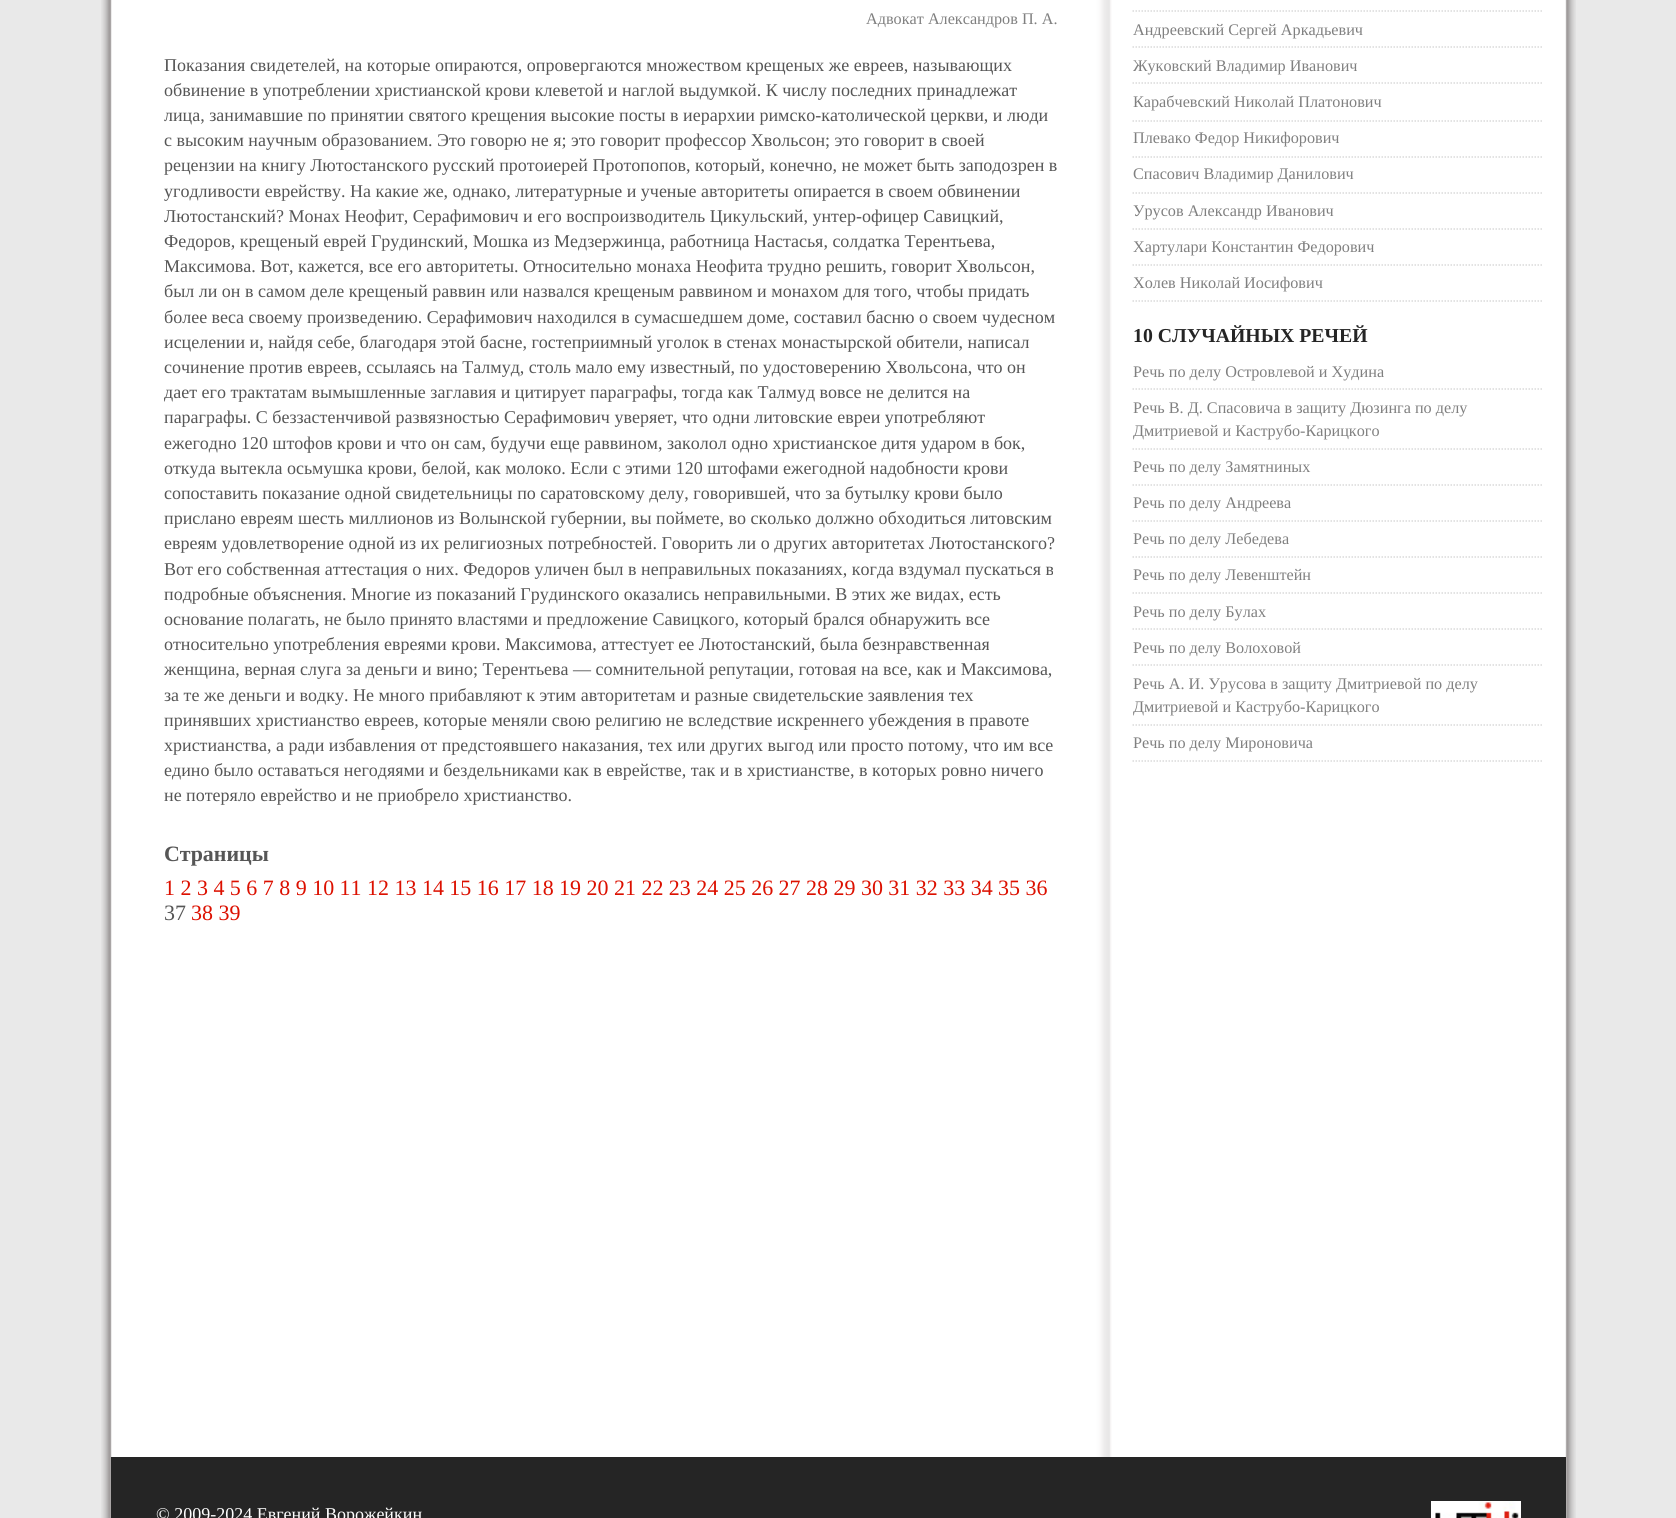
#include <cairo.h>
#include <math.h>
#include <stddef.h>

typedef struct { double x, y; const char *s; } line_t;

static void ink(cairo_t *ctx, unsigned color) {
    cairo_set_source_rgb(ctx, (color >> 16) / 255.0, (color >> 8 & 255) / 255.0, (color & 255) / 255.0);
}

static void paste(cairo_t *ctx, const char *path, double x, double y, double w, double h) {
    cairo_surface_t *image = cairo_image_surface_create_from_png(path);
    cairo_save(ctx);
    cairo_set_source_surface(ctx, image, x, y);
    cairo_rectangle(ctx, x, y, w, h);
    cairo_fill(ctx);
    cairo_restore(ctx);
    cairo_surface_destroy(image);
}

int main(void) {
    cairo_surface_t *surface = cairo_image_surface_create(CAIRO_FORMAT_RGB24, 1676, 1518);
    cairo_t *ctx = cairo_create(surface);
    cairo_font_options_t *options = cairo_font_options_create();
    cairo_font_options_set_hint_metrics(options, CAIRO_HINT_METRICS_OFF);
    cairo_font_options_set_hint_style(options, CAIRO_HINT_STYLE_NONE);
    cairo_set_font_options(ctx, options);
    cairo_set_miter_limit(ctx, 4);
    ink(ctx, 0xE9E9E9);
    cairo_paint(ctx);
    paste(ctx, "media/1.png", 101, 0, 1475, 1518);
    cairo_select_font_face(ctx, "Liberation Serif", CAIRO_FONT_SLANT_NORMAL, CAIRO_FONT_WEIGHT_NORMAL);
    cairo_set_font_size(ctx, 16.2);
    ink(ctx, 0x808080);
    cairo_move_to(ctx, 866, 24);
    cairo_show_text(ctx, "Адвокат Александров П. А.");
    cairo_set_font_size(ctx, 18);
    ink(ctx, 0x565656);
    {
        static const line_t items[] = {
            {164, 71, "Показания свидетелей, на которые опираются, опровергаются множеством крещеных же евреев, называющих"},
            {164, 96, "обвинение в употреблении христианской крови клеветой и наглой выдумкой. К числу последних принадлежат"},
            {164, 121, "лица, занимавшие по принятии святого крещения высокие посты в иерархии римско-католической церкви, и люди"},
            {164, 146, "с высоким научным образованием. Это говорю не я; это говорит профессор Хвольсон; это говорит в своей"},
            {164, 171, "рецензии на книгу Лютостанского русский протоиерей Протопопов, который, конечно, не может быть заподозрен в"},
            {164, 197, "угодливости еврейству. На какие же, однако, литературные и ученые авторитеты опирается в своем обвинении"},
            {164, 222, "Лютостанский? Монах Неофит, Серафимович и его воспроизводитель Цикульский, унтер-офицер Савицкий,"},
            {164, 247, "Федоров, крещеный еврей Грудинский, Мошка из Медзержинца, работница Настасья, солдатка Терентьева,"},
            {164, 272, "Максимова. Вот, кажется, все его авторитеты. Относительно монаха Неофита трудно решить, говорит Хвольсон,"},
            {164, 297, "был ли он в самом деле крещеный раввин или назвался крещеным раввином и монахом для того, чтобы придать"},
            {164, 323, "более веса своему произведению. Серафимович находился в сумасшедшем доме, составил басню о своем чудесном"},
            {164, 348, "исцелении и, найдя себе, благодаря этой басне, гостеприимный уголок в стенах монастырской обители, написал"},
            {164, 373, "сочинение против евреев, ссылаясь на Талмуд, столь мало ему известный, по удостоверению Хвольсона, что он"},
            {164, 398, "дает его трактатам вымышленные заглавия и цитирует параграфы, тогда как Талмуд вовсе не делится на"},
            {164, 423, "параграфы. С беззастенчивой развязностью Серафимович уверяет, что одни литовские евреи употребляют"},
            {164, 449, "ежегодно 120 штофов крови и что он сам, будучи еще раввином, заколол одно христианское дитя ударом в бок,"},
            {164, 474, "откуда вытекла осьмушка крови, белой, как молоко. Если с этими 120 штофами ежегодной надобности крови"},
            {164, 499, "сопоставить показание одной свидетельницы по саратовскому делу, говорившей, что за бутылку крови было"},
            {164, 524, "прислано евреям шесть миллионов из Волынской губернии, вы поймете, во сколько должно обходиться литовским"},
            {164, 549, "евреям удовлетворение одной из их религиозных потребностей. Говорить ли о других авторитетах Лютостанского?"},
            {164, 575, "Вот его собственная аттестация о них. Федоров уличен был в неправильных показаниях, когда вздумал пускаться в"},
            {164, 600, "подробные объяснения. Многие из показаний Грудинского оказались неправильными. В этих же видах, есть"},
            {164, 625, "основание полагать, не было принято властями и предложение Савицкого, который брался обнаружить все"},
            {164, 650, "относительно употребления евреями крови. Максимова, аттестует ее Лютостанский, была безнравственная"},
            {164, 675, "женщина, верная слуга за деньги и вино; Терентьева — сомнительной репутации, готовая на все, как и Максимова,"},
            {164, 701, "за те же деньги и водку. Не много прибавляют к этим авторитетам и разные свидетельские заявления тех"},
            {164, 726, "принявших христианство евреев, которые меняли свою религию не вследствие искреннего убеждения в правоте"},
            {164, 751, "христианства, а ради избавления от предстоявшего наказания, тех или других выгод или просто потому, что им все"},
            {164, 776, "едино было оставаться негодяями и бездельниками как в еврействе, так и в христианстве, в которых ровно ничего"},
            {164, 801, "не потеряло еврейство и не приобрело христианство."},
        };
        for (size_t i = 0; i < sizeof items / sizeof *items; i++) {
            cairo_move_to(ctx, items[i].x, items[i].y);
            cairo_show_text(ctx, items[i].s);
        }
    }
    cairo_select_font_face(ctx, "Liberation Serif", CAIRO_FONT_SLANT_NORMAL, CAIRO_FONT_WEIGHT_BOLD);
    cairo_set_font_size(ctx, 21.95);
    cairo_move_to(ctx, 164, 861);
    cairo_show_text(ctx, "Страницы");
    cairo_select_font_face(ctx, "Liberation Serif", CAIRO_FONT_SLANT_NORMAL, CAIRO_FONT_WEIGHT_NORMAL);
    ink(ctx, 0xDC1000);
    cairo_move_to(ctx, 164, 895);
    cairo_show_text(ctx, "1 2 3 4 5 6 7 8 9 10 11 12 13 14 15 16 17 18 19 20 21 22 23 24 25 26 27 28 29 30 31 32 33 34 35 36");
    ink(ctx, 0x565656);
    cairo_move_to(ctx, 164, 920);
    cairo_show_text(ctx, "37");
    ink(ctx, 0xDC1000);
    cairo_move_to(ctx, 191, 920);
    cairo_show_text(ctx, "38 39");
    cairo_new_path(ctx);
    cairo_move_to(ctx, 1132.5, 11);
    cairo_line_to(ctx, 1543.5, 11);
    ink(ctx, 0xDADADA);
    cairo_set_line_width(ctx, 1.5);
    cairo_set_dash(ctx, (double[]){1.5, 1.5}, 2, 0);
    cairo_stroke(ctx);
    cairo_new_path(ctx);
    cairo_move_to(ctx, 1132.5, 47);
    cairo_line_to(ctx, 1543.5, 47);
    cairo_stroke(ctx);
    cairo_set_font_size(ctx, 16.2);
    ink(ctx, 0x808080);
    cairo_move_to(ctx, 1133, 35);
    cairo_show_text(ctx, "Андреевский Сергей Аркадьевич");
    cairo_new_path(ctx);
    cairo_move_to(ctx, 1132.5, 83);
    cairo_line_to(ctx, 1543.5, 83);
    ink(ctx, 0xDADADA);
    cairo_stroke(ctx);
    ink(ctx, 0x808080);
    cairo_move_to(ctx, 1133, 71);
    cairo_show_text(ctx, "Жуковский Владимир Иванович");
    cairo_new_path(ctx);
    cairo_move_to(ctx, 1132.5, 121);
    cairo_line_to(ctx, 1543.5, 121);
    ink(ctx, 0xDADADA);
    cairo_stroke(ctx);
    ink(ctx, 0x808080);
    cairo_move_to(ctx, 1133, 107);
    cairo_show_text(ctx, "Карабчевский Николай Платонович");
    cairo_new_path(ctx);
    cairo_move_to(ctx, 1132.5, 157);
    cairo_line_to(ctx, 1543.5, 157);
    ink(ctx, 0xDADADA);
    cairo_stroke(ctx);
    ink(ctx, 0x808080);
    cairo_move_to(ctx, 1133, 143);
    cairo_show_text(ctx, "Плевако Федор Никифорович");
    cairo_new_path(ctx);
    cairo_move_to(ctx, 1132.5, 193);
    cairo_line_to(ctx, 1543.5, 193);
    ink(ctx, 0xDADADA);
    cairo_stroke(ctx);
    ink(ctx, 0x808080);
    cairo_move_to(ctx, 1133, 179);
    cairo_show_text(ctx, "Спасович Владимир Данилович");
    cairo_new_path(ctx);
    cairo_move_to(ctx, 1132.5, 229);
    cairo_line_to(ctx, 1543.5, 229);
    ink(ctx, 0xDADADA);
    cairo_stroke(ctx);
    ink(ctx, 0x808080);
    cairo_move_to(ctx, 1133, 216);
    cairo_show_text(ctx, "Урусов Александр Иванович");
    cairo_new_path(ctx);
    cairo_move_to(ctx, 1132.5, 265);
    cairo_line_to(ctx, 1543.5, 265);
    ink(ctx, 0xDADADA);
    cairo_stroke(ctx);
    ink(ctx, 0x808080);
    cairo_move_to(ctx, 1133, 252);
    cairo_show_text(ctx, "Хартулари Константин Федорович");
    cairo_new_path(ctx);
    cairo_move_to(ctx, 1132.5, 301);
    cairo_line_to(ctx, 1543.5, 301);
    ink(ctx, 0xDADADA);
    cairo_stroke(ctx);
    ink(ctx, 0x808080);
    cairo_move_to(ctx, 1133, 288);
    cairo_show_text(ctx, "Холев Николай Иосифович");
    cairo_select_font_face(ctx, "Liberation Serif", CAIRO_FONT_SLANT_NORMAL, CAIRO_FONT_WEIGHT_BOLD);
    cairo_set_font_size(ctx, 19.75);
    ink(ctx, 0x252525);
    cairo_move_to(ctx, 1133, 342);
    cairo_show_text(ctx, "10 СЛУЧАЙНЫХ РЕЧЕЙ");
    cairo_new_path(ctx);
    cairo_move_to(ctx, 1132.5, 389);
    cairo_line_to(ctx, 1543.5, 389);
    ink(ctx, 0xDADADA);
    cairo_stroke(ctx);
    cairo_select_font_face(ctx, "Liberation Serif", CAIRO_FONT_SLANT_NORMAL, CAIRO_FONT_WEIGHT_NORMAL);
    cairo_set_font_size(ctx, 16.2);
    ink(ctx, 0x808080);
    cairo_move_to(ctx, 1133, 377);
    cairo_show_text(ctx, "Речь по делу Островлевой и Худина");
    cairo_new_path(ctx);
    cairo_move_to(ctx, 1132.5, 449);
    cairo_line_to(ctx, 1543.5, 449);
    ink(ctx, 0xDADADA);
    cairo_stroke(ctx);
    ink(ctx, 0x808080);
    cairo_move_to(ctx, 1133, 413);
    cairo_show_text(ctx, "Речь В. Д. Спасовича в защиту Дюзинга по делу");
    cairo_move_to(ctx, 1133, 436);
    cairo_show_text(ctx, "Дмитриевой и Каструбо-Карицкого");
    cairo_new_path(ctx);
    cairo_move_to(ctx, 1132.5, 485);
    cairo_line_to(ctx, 1543.5, 485);
    ink(ctx, 0xDADADA);
    cairo_stroke(ctx);
    ink(ctx, 0x808080);
    cairo_move_to(ctx, 1133, 472);
    cairo_show_text(ctx, "Речь по делу Замятниных");
    cairo_new_path(ctx);
    cairo_move_to(ctx, 1132.5, 521);
    cairo_line_to(ctx, 1543.5, 521);
    ink(ctx, 0xDADADA);
    cairo_stroke(ctx);
    ink(ctx, 0x808080);
    cairo_move_to(ctx, 1133, 508);
    cairo_show_text(ctx, "Речь по делу Андреева");
    cairo_new_path(ctx);
    cairo_move_to(ctx, 1132.5, 557);
    cairo_line_to(ctx, 1543.5, 557);
    ink(ctx, 0xDADADA);
    cairo_stroke(ctx);
    ink(ctx, 0x808080);
    cairo_move_to(ctx, 1133, 544);
    cairo_show_text(ctx, "Речь по делу Лебедева");
    cairo_new_path(ctx);
    cairo_move_to(ctx, 1132.5, 593);
    cairo_line_to(ctx, 1543.5, 593);
    ink(ctx, 0xDADADA);
    cairo_stroke(ctx);
    ink(ctx, 0x808080);
    cairo_move_to(ctx, 1133, 580);
    cairo_show_text(ctx, "Речь по делу Левенштейн");
    cairo_new_path(ctx);
    cairo_move_to(ctx, 1132.5, 629);
    cairo_line_to(ctx, 1543.5, 629);
    ink(ctx, 0xDADADA);
    cairo_stroke(ctx);
    ink(ctx, 0x808080);
    cairo_move_to(ctx, 1133, 617);
    cairo_show_text(ctx, "Речь по делу Булах");
    cairo_new_path(ctx);
    cairo_move_to(ctx, 1132.5, 665);
    cairo_line_to(ctx, 1543.5, 665);
    ink(ctx, 0xDADADA);
    cairo_stroke(ctx);
    ink(ctx, 0x808080);
    cairo_move_to(ctx, 1133, 653);
    cairo_show_text(ctx, "Речь по делу Волоховой");
    cairo_new_path(ctx);
    cairo_move_to(ctx, 1132.5, 725);
    cairo_line_to(ctx, 1543.5, 725);
    ink(ctx, 0xDADADA);
    cairo_stroke(ctx);
    ink(ctx, 0x808080);
    cairo_move_to(ctx, 1133, 689);
    cairo_show_text(ctx, "Речь А. И. Урусова в защиту Дмитриевой по делу");
    cairo_move_to(ctx, 1133, 712);
    cairo_show_text(ctx, "Дмитриевой и Каструбо-Карицкого");
    cairo_new_path(ctx);
    cairo_move_to(ctx, 1132.5, 761);
    cairo_line_to(ctx, 1543.5, 761);
    ink(ctx, 0xDADADA);
    cairo_stroke(ctx);
    ink(ctx, 0x808080);
    cairo_move_to(ctx, 1133, 748);
    cairo_show_text(ctx, "Речь по делу Мироновича");
    ink(ctx, 0x252525);
    cairo_rectangle(ctx, 111, 1457, 1455, 61);
    cairo_fill(ctx);
    cairo_set_font_size(ctx, 18);
    ink(ctx, 0xFFFFFF);
    cairo_move_to(ctx, 156, 1520);
    cairo_show_text(ctx, "© 2009-2024 Евгений Ворожейкин");
    paste(ctx, "media/2.png", 1431, 1501, 90, 17);
    cairo_surface_write_to_png(surface, "image.png");
    cairo_font_options_destroy(options);
    cairo_destroy(ctx);
    cairo_surface_destroy(surface);
    return 0;
}
